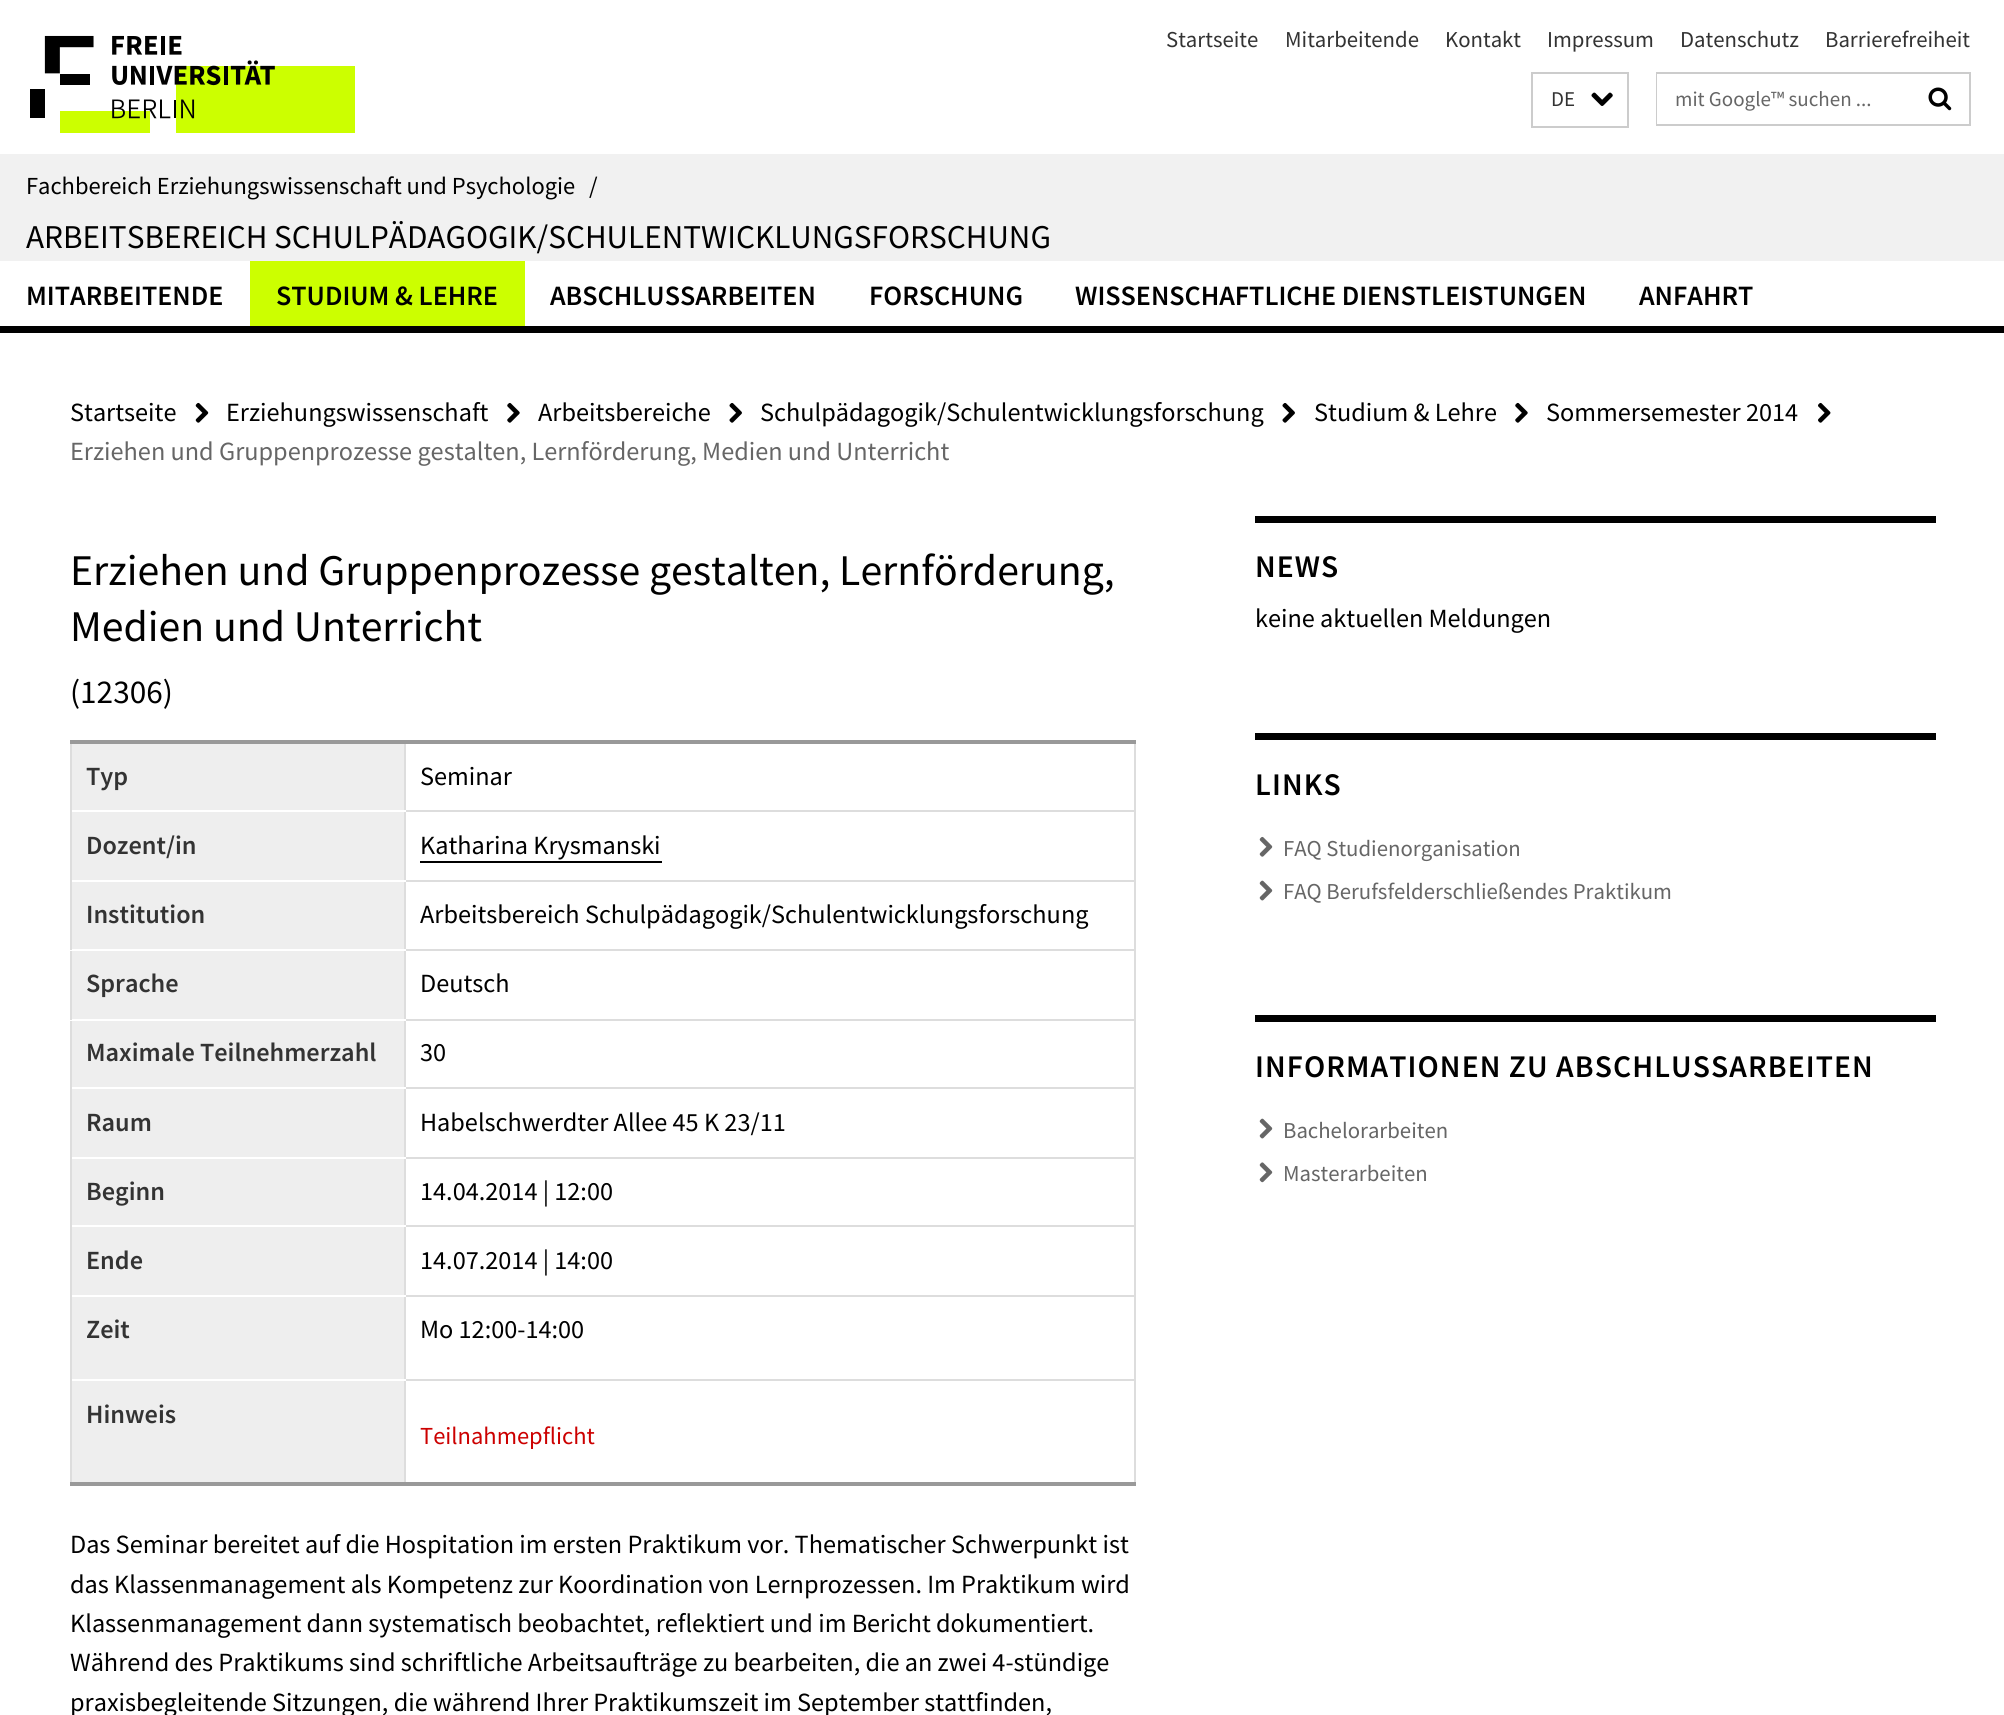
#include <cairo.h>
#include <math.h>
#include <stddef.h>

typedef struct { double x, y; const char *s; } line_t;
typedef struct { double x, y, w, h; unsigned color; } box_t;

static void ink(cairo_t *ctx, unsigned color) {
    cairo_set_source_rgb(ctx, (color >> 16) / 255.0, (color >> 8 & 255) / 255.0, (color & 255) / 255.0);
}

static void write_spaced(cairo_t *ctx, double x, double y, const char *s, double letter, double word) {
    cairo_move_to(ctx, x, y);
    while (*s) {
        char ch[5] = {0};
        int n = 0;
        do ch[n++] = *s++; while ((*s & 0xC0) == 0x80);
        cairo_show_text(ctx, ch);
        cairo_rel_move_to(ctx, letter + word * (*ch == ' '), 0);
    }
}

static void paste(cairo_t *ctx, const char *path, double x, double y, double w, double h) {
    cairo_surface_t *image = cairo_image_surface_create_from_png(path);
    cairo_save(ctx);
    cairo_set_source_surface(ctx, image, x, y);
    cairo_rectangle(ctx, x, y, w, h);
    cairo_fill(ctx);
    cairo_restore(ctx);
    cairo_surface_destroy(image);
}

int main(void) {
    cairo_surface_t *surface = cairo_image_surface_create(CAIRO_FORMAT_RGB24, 2004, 1715);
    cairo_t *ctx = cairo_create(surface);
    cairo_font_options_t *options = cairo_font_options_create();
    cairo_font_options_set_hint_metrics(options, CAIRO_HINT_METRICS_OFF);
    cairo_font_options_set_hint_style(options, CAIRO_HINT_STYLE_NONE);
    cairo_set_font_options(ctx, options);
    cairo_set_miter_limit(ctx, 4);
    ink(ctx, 0xFFFFFF);
    cairo_paint(ctx);
    paste(ctx, "media/1.png", 30, 35, 325, 98);
    cairo_select_font_face(ctx, "Source Sans Pro", CAIRO_FONT_SLANT_NORMAL, CAIRO_FONT_WEIGHT_NORMAL);
    cairo_set_font_size(ctx, 22.75);
    ink(ctx, 0x333333);
    {
        static const line_t items[] = {
            {1166, 47, "Startseite"},
            {1285, 47, "Mitarbeitende"},
            {1445, 47, "Kontakt"},
            {1547, 47, "Impressum"},
            {1680, 47, "Datenschutz"},
            {1825, 47, "Barrierefreiheit"},
        };
        for (size_t i = 0; i < sizeof items / sizeof *items; i++) {
            cairo_move_to(ctx, items[i].x, items[i].y);
            cairo_show_text(ctx, items[i].s);
        }
    }
    cairo_rectangle(ctx, 1532, 73, 96, 54);
    ink(ctx, 0xCCCCCC);
    cairo_stroke(ctx);
    cairo_set_font_size(ctx, 21);
    ink(ctx, 0x333333);
    cairo_move_to(ctx, 1551, 106);
    cairo_show_text(ctx, "DE");
    paste(ctx, "media/2.png", 1591, 92, 22, 14);
    cairo_rectangle(ctx, 1657, 73, 313, 52);
    ink(ctx, 0xCCCCCC);
    cairo_stroke(ctx);
    ink(ctx, 0xFFFFFF);
    cairo_rectangle(ctx, 1657, 74, 1, 50);
    cairo_fill(ctx);
    ink(ctx, 0x666666);
    cairo_move_to(ctx, 1675, 106);
    cairo_show_text(ctx, "mit Google™ suchen ...");
    paste(ctx, "media/3.png", 1928, 87, 24, 24);
    ink(ctx, 0xF1F1F1);
    cairo_rectangle(ctx, 0, 154, 2004, 107);
    cairo_fill(ctx);
    cairo_set_font_size(ctx, 24.5);
    ink(ctx, 0x000000);
    cairo_move_to(ctx, 26, 194);
    cairo_show_text(ctx, "Fachbereich Erziehungswissenschaft und Psychologie");
    cairo_move_to(ctx, 589, 194);
    cairo_show_text(ctx, "/");
    cairo_set_font_size(ctx, 33.25);
    cairo_move_to(ctx, 26, 248);
    cairo_show_text(ctx, "ARBEITSBEREICH SCHULPÄDAGOGIK/SCHULENTWICKLUNGSFORSCHUNG");
    cairo_rectangle(ctx, 0, 326, 2004, 7);
    cairo_fill(ctx);
    cairo_select_font_face(ctx, "Source Sans Pro SemiBold", CAIRO_FONT_SLANT_NORMAL, CAIRO_FONT_WEIGHT_NORMAL);
    cairo_set_font_size(ctx, 28);
    cairo_move_to(ctx, 26, 305);
    cairo_show_text(ctx, "MITARBEITENDE");
    ink(ctx, 0xCCFF00);
    cairo_rectangle(ctx, 250, 261, 275, 65);
    cairo_fill(ctx);
    ink(ctx, 0x000000);
    {
        static const line_t items[] = {
            {276, 305, "STUDIUM & LEHRE"},
            {550, 305, "ABSCHLUSSARBEITEN"},
            {869, 305, "FORSCHUNG"},
            {1075, 305, "WISSENSCHAFTLICHE DIENSTLEISTUNGEN"},
            {1639, 305, "ANFAHRT"},
        };
        for (size_t i = 0; i < sizeof items / sizeof *items; i++) {
            cairo_move_to(ctx, items[i].x, items[i].y);
            cairo_show_text(ctx, items[i].s);
        }
    }
    cairo_select_font_face(ctx, "Source Sans Pro", CAIRO_FONT_SLANT_NORMAL, CAIRO_FONT_WEIGHT_NORMAL);
    cairo_set_font_size(ctx, 26.25);
    cairo_move_to(ctx, 70, 421);
    cairo_show_text(ctx, "Startseite");
    paste(ctx, "media/4.png", 195, 402, 14, 21);
    cairo_move_to(ctx, 226, 421);
    cairo_show_text(ctx, "Erziehungswissenschaft");
    paste(ctx, "media/5.png", 507, 402, 13, 21);
    cairo_move_to(ctx, 538, 421);
    cairo_show_text(ctx, "Arbeitsbereiche");
    paste(ctx, "media/6.png", 729, 403, 13, 20);
    cairo_move_to(ctx, 760, 421);
    cairo_show_text(ctx, "Schulpädagogik/Schulentwicklungsforschung");
    paste(ctx, "media/6.png", 1282, 403, 13, 20);
    cairo_move_to(ctx, 1314, 421);
    cairo_show_text(ctx, "Studium & Lehre");
    paste(ctx, "media/5.png", 1515, 402, 13, 21);
    cairo_move_to(ctx, 1546, 421);
    cairo_show_text(ctx, "Sommersemester 2014");
    paste(ctx, "media/7.png", 1818, 402, 13, 21);
    ink(ctx, 0x666666);
    cairo_move_to(ctx, 70, 460);
    cairo_show_text(ctx, "Erziehen und Gruppenprozesse gestalten, Lernförderung, Medien und Unterricht");
    cairo_set_font_size(ctx, 43.75);
    ink(ctx, 0x000000);
    cairo_move_to(ctx, 70, 585);
    cairo_show_text(ctx, "Erziehen und Gruppenprozesse gestalten, Lernförderung,");
    cairo_move_to(ctx, 70, 641);
    cairo_show_text(ctx, "Medien und Unterricht");
    cairo_set_font_size(ctx, 33.25);
    cairo_move_to(ctx, 70, 703);
    cairo_show_text(ctx, "(12306)");
    {
        static const box_t items[] = {
            {404, 810, 732, 2, 0xDDDDDD},
            {404, 880, 732, 2, 0xDDDDDD},
            {404, 949, 732, 2, 0xDDDDDD},
            {404, 1019, 732, 2, 0xDDDDDD},
            {404, 1087, 732, 2, 0xDDDDDD},
            {404, 1157, 732, 2, 0xDDDDDD},
            {404, 1225, 732, 2, 0xDDDDDD},
            {404, 1295, 732, 2, 0xDDDDDD},
            {404, 1379, 732, 2, 0xDDDDDD},
            {404, 1379, 2, 107, 0xDDDDDD},
            {404, 1295, 2, 86, 0xDDDDDD},
            {404, 1225, 2, 72, 0xDDDDDD},
            {404, 1157, 2, 70, 0xDDDDDD},
            {404, 1087, 2, 72, 0xDDDDDD},
            {404, 1019, 2, 70, 0xDDDDDD},
            {404, 949, 2, 71, 0xDDDDDD},
            {404, 880, 2, 70, 0xDDDDDD},
            {404, 740, 2, 142, 0xDDDDDD},
            {70, 1379, 2, 107, 0xDDDDDD},
            {70, 1379, 336, 2, 0xFFFFFF},
            {70, 1295, 2, 86, 0xDDDDDD},
            {70, 1295, 336, 2, 0xFFFFFF},
            {70, 1225, 2, 72, 0xDDDDDD},
            {70, 1225, 336, 2, 0xFFFFFF},
            {70, 1157, 2, 70, 0xDDDDDD},
            {70, 1157, 336, 2, 0xFFFFFF},
            {70, 1087, 2, 72, 0xDDDDDD},
            {70, 1087, 336, 2, 0xFFFFFF},
            {70, 1019, 2, 70, 0xDDDDDD},
            {70, 1019, 336, 2, 0xFFFFFF},
            {70, 949, 2, 71, 0xDDDDDD},
            {70, 949, 336, 2, 0xFFFFFF},
            {70, 880, 2, 70, 0xDDDDDD},
            {70, 880, 336, 2, 0xFFFFFF},
            {70, 810, 2, 72, 0xDDDDDD},
            {70, 810, 336, 2, 0xFFFFFF},
            {70, 740, 2, 72, 0xDDDDDD},
            {1134, 1379, 2, 107, 0xDDDDDD},
            {1134, 1295, 2, 86, 0xDDDDDD},
            {1134, 1225, 2, 72, 0xDDDDDD},
            {1134, 1157, 2, 70, 0xDDDDDD},
            {1134, 1087, 2, 72, 0xDDDDDD},
            {1134, 1019, 2, 70, 0xDDDDDD},
            {1134, 949, 2, 71, 0xDDDDDD},
            {1134, 880, 2, 70, 0xDDDDDD},
            {1134, 740, 2, 142, 0xDDDDDD},
            {70, 740, 1066, 4, 0x999999},
            {70, 1482, 1066, 4, 0x999999},
            {72, 744, 332, 66, 0xEEEEEE},
        };
        for (size_t i = 0; i < sizeof items / sizeof *items; i++) {
            ink(ctx, items[i].color);
            cairo_rectangle(ctx, items[i].x, items[i].y, items[i].w, items[i].h);
            cairo_fill(ctx);
        }
    }
    cairo_select_font_face(ctx, "Source Sans Pro SemiBold", CAIRO_FONT_SLANT_NORMAL, CAIRO_FONT_WEIGHT_NORMAL);
    cairo_set_font_size(ctx, 26.25);
    ink(ctx, 0x333333);
    cairo_move_to(ctx, 86, 785);
    cairo_show_text(ctx, "Typ");
    cairo_select_font_face(ctx, "Source Sans Pro", CAIRO_FONT_SLANT_NORMAL, CAIRO_FONT_WEIGHT_NORMAL);
    ink(ctx, 0x000000);
    cairo_move_to(ctx, 420, 785);
    cairo_show_text(ctx, "Seminar");
    ink(ctx, 0xEEEEEE);
    cairo_rectangle(ctx, 72, 812, 332, 68);
    cairo_fill(ctx);
    cairo_select_font_face(ctx, "Source Sans Pro SemiBold", CAIRO_FONT_SLANT_NORMAL, CAIRO_FONT_WEIGHT_NORMAL);
    ink(ctx, 0x333333);
    cairo_move_to(ctx, 86, 854);
    cairo_show_text(ctx, "Dozent/in");
    cairo_select_font_face(ctx, "Source Sans Pro", CAIRO_FONT_SLANT_NORMAL, CAIRO_FONT_WEIGHT_NORMAL);
    ink(ctx, 0x000000);
    cairo_move_to(ctx, 420, 854);
    cairo_show_text(ctx, "Katharina Krysmanski");
    cairo_rectangle(ctx, 420, 861, 242, 2);
    cairo_fill(ctx);
    ink(ctx, 0xEEEEEE);
    cairo_rectangle(ctx, 72, 882, 332, 67);
    cairo_fill(ctx);
    cairo_select_font_face(ctx, "Source Sans Pro SemiBold", CAIRO_FONT_SLANT_NORMAL, CAIRO_FONT_WEIGHT_NORMAL);
    ink(ctx, 0x333333);
    cairo_move_to(ctx, 86, 923);
    cairo_show_text(ctx, "Institution");
    cairo_select_font_face(ctx, "Source Sans Pro", CAIRO_FONT_SLANT_NORMAL, CAIRO_FONT_WEIGHT_NORMAL);
    ink(ctx, 0x000000);
    cairo_move_to(ctx, 420, 923);
    cairo_show_text(ctx, "Arbeitsbereich Schulpädagogik/Schulentwicklungsforschung");
    ink(ctx, 0xEEEEEE);
    cairo_rectangle(ctx, 72, 951, 332, 68);
    cairo_fill(ctx);
    cairo_select_font_face(ctx, "Source Sans Pro SemiBold", CAIRO_FONT_SLANT_NORMAL, CAIRO_FONT_WEIGHT_NORMAL);
    ink(ctx, 0x333333);
    cairo_move_to(ctx, 86, 992);
    cairo_show_text(ctx, "Sprache");
    cairo_select_font_face(ctx, "Source Sans Pro", CAIRO_FONT_SLANT_NORMAL, CAIRO_FONT_WEIGHT_NORMAL);
    ink(ctx, 0x000000);
    cairo_move_to(ctx, 420, 992);
    cairo_show_text(ctx, "Deutsch");
    ink(ctx, 0xEEEEEE);
    cairo_rectangle(ctx, 72, 1021, 332, 66);
    cairo_fill(ctx);
    cairo_select_font_face(ctx, "Source Sans Pro SemiBold", CAIRO_FONT_SLANT_NORMAL, CAIRO_FONT_WEIGHT_NORMAL);
    ink(ctx, 0x333333);
    cairo_move_to(ctx, 86, 1061);
    cairo_show_text(ctx, "Maximale Teilnehmerzahl");
    cairo_select_font_face(ctx, "Source Sans Pro", CAIRO_FONT_SLANT_NORMAL, CAIRO_FONT_WEIGHT_NORMAL);
    ink(ctx, 0x000000);
    cairo_move_to(ctx, 420, 1061);
    cairo_show_text(ctx, "30");
    ink(ctx, 0xEEEEEE);
    cairo_rectangle(ctx, 72, 1089, 332, 68);
    cairo_fill(ctx);
    cairo_select_font_face(ctx, "Source Sans Pro SemiBold", CAIRO_FONT_SLANT_NORMAL, CAIRO_FONT_WEIGHT_NORMAL);
    ink(ctx, 0x333333);
    cairo_move_to(ctx, 86, 1131);
    cairo_show_text(ctx, "Raum");
    cairo_select_font_face(ctx, "Source Sans Pro", CAIRO_FONT_SLANT_NORMAL, CAIRO_FONT_WEIGHT_NORMAL);
    ink(ctx, 0x000000);
    cairo_move_to(ctx, 420, 1131);
    cairo_show_text(ctx, "Habelschwerdter Allee 45 K 23/11");
    ink(ctx, 0xEEEEEE);
    cairo_rectangle(ctx, 72, 1159, 332, 66);
    cairo_fill(ctx);
    cairo_select_font_face(ctx, "Source Sans Pro SemiBold", CAIRO_FONT_SLANT_NORMAL, CAIRO_FONT_WEIGHT_NORMAL);
    ink(ctx, 0x333333);
    cairo_move_to(ctx, 86, 1200);
    cairo_show_text(ctx, "Beginn");
    cairo_select_font_face(ctx, "Source Sans Pro", CAIRO_FONT_SLANT_NORMAL, CAIRO_FONT_WEIGHT_NORMAL);
    ink(ctx, 0x000000);
    cairo_move_to(ctx, 420, 1200);
    cairo_show_text(ctx, "14.04.2014 | 12:00");
    ink(ctx, 0xEEEEEE);
    cairo_rectangle(ctx, 72, 1227, 332, 68);
    cairo_fill(ctx);
    cairo_select_font_face(ctx, "Source Sans Pro SemiBold", CAIRO_FONT_SLANT_NORMAL, CAIRO_FONT_WEIGHT_NORMAL);
    ink(ctx, 0x333333);
    cairo_move_to(ctx, 86, 1269);
    cairo_show_text(ctx, "Ende");
    cairo_select_font_face(ctx, "Source Sans Pro", CAIRO_FONT_SLANT_NORMAL, CAIRO_FONT_WEIGHT_NORMAL);
    ink(ctx, 0x000000);
    cairo_move_to(ctx, 420, 1269);
    cairo_show_text(ctx, "14.07.2014 | 14:00");
    ink(ctx, 0xEEEEEE);
    cairo_rectangle(ctx, 72, 1297, 332, 82);
    cairo_fill(ctx);
    cairo_select_font_face(ctx, "Source Sans Pro SemiBold", CAIRO_FONT_SLANT_NORMAL, CAIRO_FONT_WEIGHT_NORMAL);
    ink(ctx, 0x333333);
    cairo_move_to(ctx, 86, 1338);
    cairo_show_text(ctx, "Zeit");
    cairo_select_font_face(ctx, "Source Sans Pro", CAIRO_FONT_SLANT_NORMAL, CAIRO_FONT_WEIGHT_NORMAL);
    ink(ctx, 0x000000);
    cairo_move_to(ctx, 420, 1338);
    cairo_show_text(ctx, "Mo 12:00-14:00");
    ink(ctx, 0xEEEEEE);
    cairo_rectangle(ctx, 72, 1381, 332, 101);
    cairo_fill(ctx);
    cairo_select_font_face(ctx, "Source Sans Pro SemiBold", CAIRO_FONT_SLANT_NORMAL, CAIRO_FONT_WEIGHT_NORMAL);
    ink(ctx, 0x333333);
    cairo_move_to(ctx, 86, 1423);
    cairo_show_text(ctx, "Hinweis");
    cairo_select_font_face(ctx, "Source Sans Pro", CAIRO_FONT_SLANT_NORMAL, CAIRO_FONT_WEIGHT_NORMAL);
    cairo_set_font_size(ctx, 24.5);
    ink(ctx, 0xCC0000);
    cairo_move_to(ctx, 420, 1444);
    cairo_show_text(ctx, "Teilnahmepflicht");
    cairo_set_font_size(ctx, 26.25);
    ink(ctx, 0x000000);
    {
        static const line_t items[] = {
            {70, 1553, "Das Seminar bereitet auf die Hospitation im ersten Praktikum vor. Thematischer Schwerpunkt ist"},
            {70, 1593, "das Klassenmanagement als Kompetenz zur Koordination von Lernprozessen. Im Praktikum wird"},
            {70, 1632, "Klassenmanagement dann systematisch beobachtet, reflektiert und im Bericht dokumentiert."},
            {70, 1671, "Während des Praktikums sind schriftliche Arbeitsaufträge zu bearbeiten, die an zwei 4-stündige"},
            {70, 1711, "praxisbegleitende Sitzungen, die während Ihrer Praktikumszeit im September stattfinden,"},
        };
        for (size_t i = 0; i < sizeof items / sizeof *items; i++) {
            cairo_move_to(ctx, items[i].x, items[i].y);
            cairo_show_text(ctx, items[i].s);
        }
    }
    cairo_rectangle(ctx, 1255, 516, 681, 7);
    cairo_fill(ctx);
    cairo_select_font_face(ctx, "Source Sans Pro SemiBold", CAIRO_FONT_SLANT_NORMAL, CAIRO_FONT_WEIGHT_NORMAL);
    cairo_set_font_size(ctx, 31.5);
    write_spaced(ctx, 1255, 577, "NEWS", 1.1, 0);
    cairo_select_font_face(ctx, "Source Sans Pro", CAIRO_FONT_SLANT_NORMAL, CAIRO_FONT_WEIGHT_NORMAL);
    cairo_set_font_size(ctx, 26.25);
    cairo_move_to(ctx, 1255, 627);
    cairo_show_text(ctx, "keine aktuellen Meldungen");
    cairo_rectangle(ctx, 1255, 733, 681, 7);
    cairo_fill(ctx);
    cairo_select_font_face(ctx, "Source Sans Pro SemiBold", CAIRO_FONT_SLANT_NORMAL, CAIRO_FONT_WEIGHT_NORMAL);
    cairo_set_font_size(ctx, 31.5);
    write_spaced(ctx, 1255, 795, "LINKS", 1.1, 0);
    paste(ctx, "media/8.png", 1259, 836, 14, 21);
    cairo_select_font_face(ctx, "Source Sans Pro", CAIRO_FONT_SLANT_NORMAL, CAIRO_FONT_WEIGHT_NORMAL);
    cairo_set_font_size(ctx, 22.75);
    ink(ctx, 0x666666);
    cairo_move_to(ctx, 1283, 856);
    cairo_show_text(ctx, "FAQ Studienorganisation");
    paste(ctx, "media/9.png", 1259, 880, 14, 21);
    cairo_move_to(ctx, 1283, 899);
    cairo_show_text(ctx, "FAQ Berufsfelderschließendes Praktikum");
    ink(ctx, 0x000000);
    cairo_rectangle(ctx, 1255, 1015, 681, 7);
    cairo_fill(ctx);
    cairo_select_font_face(ctx, "Source Sans Pro SemiBold", CAIRO_FONT_SLANT_NORMAL, CAIRO_FONT_WEIGHT_NORMAL);
    cairo_set_font_size(ctx, 31.5);
    write_spaced(ctx, 1255, 1077, "INFORMATIONEN ZU ABSCHLUSSARBEITEN", 1.1, 0);
    paste(ctx, "media/9.png", 1259, 1118, 14, 21);
    cairo_select_font_face(ctx, "Source Sans Pro", CAIRO_FONT_SLANT_NORMAL, CAIRO_FONT_WEIGHT_NORMAL);
    cairo_set_font_size(ctx, 22.75);
    ink(ctx, 0x666666);
    cairo_move_to(ctx, 1283, 1138);
    cairo_show_text(ctx, "Bachelorarbeiten");
    paste(ctx, "media/10.png", 1259, 1162, 14, 21);
    cairo_move_to(ctx, 1283, 1181);
    cairo_show_text(ctx, "Masterarbeiten");
    cairo_surface_write_to_png(surface, "image.png");
    cairo_font_options_destroy(options);
    cairo_destroy(ctx);
    cairo_surface_destroy(surface);
    return 0;
}
